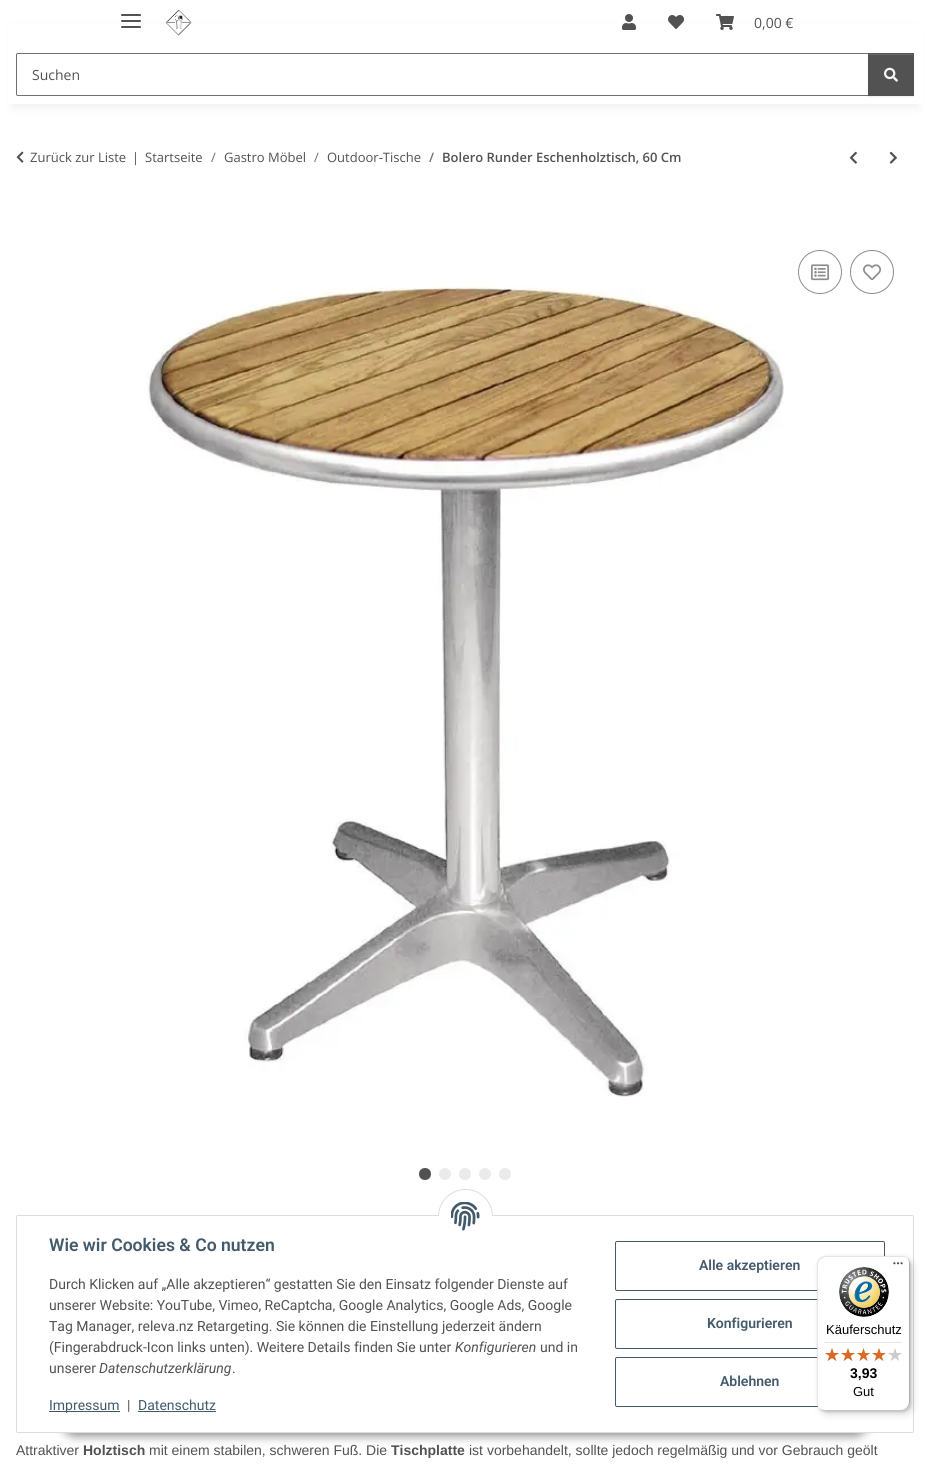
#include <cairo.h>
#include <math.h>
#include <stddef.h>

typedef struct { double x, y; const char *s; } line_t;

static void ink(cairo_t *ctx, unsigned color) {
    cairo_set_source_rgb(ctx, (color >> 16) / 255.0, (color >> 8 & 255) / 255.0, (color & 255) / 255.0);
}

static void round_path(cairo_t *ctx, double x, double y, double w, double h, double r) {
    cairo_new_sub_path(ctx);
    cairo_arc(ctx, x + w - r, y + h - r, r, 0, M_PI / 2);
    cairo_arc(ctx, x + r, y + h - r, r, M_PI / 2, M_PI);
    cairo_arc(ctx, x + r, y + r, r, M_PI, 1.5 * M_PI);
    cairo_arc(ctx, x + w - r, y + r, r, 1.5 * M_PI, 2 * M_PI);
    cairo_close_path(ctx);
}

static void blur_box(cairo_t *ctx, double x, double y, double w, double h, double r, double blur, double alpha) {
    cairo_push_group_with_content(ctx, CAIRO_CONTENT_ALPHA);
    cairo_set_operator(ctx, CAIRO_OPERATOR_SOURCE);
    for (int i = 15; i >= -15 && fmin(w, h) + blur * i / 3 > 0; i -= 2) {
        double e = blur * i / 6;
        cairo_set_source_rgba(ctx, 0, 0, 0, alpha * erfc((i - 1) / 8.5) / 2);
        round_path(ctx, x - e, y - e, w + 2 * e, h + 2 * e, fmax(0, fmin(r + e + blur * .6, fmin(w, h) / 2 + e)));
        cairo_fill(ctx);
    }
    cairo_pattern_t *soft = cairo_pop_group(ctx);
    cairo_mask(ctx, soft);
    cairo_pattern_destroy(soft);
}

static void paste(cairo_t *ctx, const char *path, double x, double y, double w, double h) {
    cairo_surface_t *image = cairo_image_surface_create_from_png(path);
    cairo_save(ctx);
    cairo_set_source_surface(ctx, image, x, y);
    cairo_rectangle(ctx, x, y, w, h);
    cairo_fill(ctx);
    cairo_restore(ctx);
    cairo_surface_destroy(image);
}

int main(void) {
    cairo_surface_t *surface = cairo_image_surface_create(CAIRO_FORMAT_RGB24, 930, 1465);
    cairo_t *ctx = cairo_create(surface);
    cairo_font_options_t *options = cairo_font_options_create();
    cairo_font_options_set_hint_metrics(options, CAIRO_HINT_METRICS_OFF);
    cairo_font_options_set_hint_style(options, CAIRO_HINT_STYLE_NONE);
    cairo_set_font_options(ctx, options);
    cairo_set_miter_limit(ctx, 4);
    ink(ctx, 0xFFFFFF);
    cairo_paint(ctx);
    ink(ctx, 0x000000);
    blur_box(ctx, 12, 28, 906, 80, 0, 4.5, 0.06);
    ink(ctx, 0xFFFFFF);
    cairo_rectangle(ctx, 8, 24, 914, 80);
    cairo_fill(ctx);
    ink(ctx, 0x525252);
    round_path(ctx, 121, 20, 20, 2, 1);
    cairo_fill(ctx);
    round_path(ctx, 121, 14, 20, 2, 1);
    cairo_fill(ctx);
    round_path(ctx, 121, 26, 20, 2, 1);
    cairo_fill(ctx);
    paste(ctx, "media/1.png", 165, 9, 27, 27);
    paste(ctx, "media/2.png", 622, 14, 14, 16);
    paste(ctx, "media/3.png", 668, 15, 16, 14);
    paste(ctx, "media/4.png", 716, 14, 18, 16);
    cairo_select_font_face(ctx, "Open Sans", CAIRO_FONT_SLANT_NORMAL, CAIRO_FONT_WEIGHT_NORMAL);
    cairo_set_font_size(ctx, 14);
    cairo_move_to(ctx, 754, 28);
    cairo_show_text(ctx, "0,00 €");
    cairo_new_path(ctx);
    cairo_move_to(ctx, 18, 53.5);
    cairo_line_to(ctx, 868.5, 53.5);
    cairo_line_to(ctx, 868.5, 95.5);
    cairo_line_to(ctx, 18, 95.5);
    cairo_curve_to(ctx, 17, 95.5, 16.5, 95, 16.5, 94);
    cairo_line_to(ctx, 16.5, 55);
    cairo_curve_to(ctx, 16.5, 54, 17, 53.5, 18, 53.5);
    cairo_close_path(ctx);
    ink(ctx, 0x707070);
    cairo_set_line_width(ctx, 1);
    cairo_stroke(ctx);
    ink(ctx, 0x525252);
    cairo_move_to(ctx, 32, 80);
    cairo_show_text(ctx, "Suchen");
    ink(ctx, 0x000000);
    blur_box(ctx, 868, 54, 46, 43, 0, 0.5, 0.07);
    ink(ctx, 0x525252);
    cairo_rectangle(ctx, 868, 53, 46, 43);
    cairo_fill(ctx);
    ink(ctx, 0x6C6C6C);
    cairo_rectangle(ctx, 869, 54, 44, 1);
    cairo_fill(ctx);
    paste(ctx, "media/5.png", 884, 67, 14, 15);
    paste(ctx, "media/6.png", 16, 151, 8, 12);
    cairo_set_font_size(ctx, 13);
    ink(ctx, 0x525252);
    {
        static const line_t items[] = {
            {30, 162, "Zurück zur Liste"},
            {132, 162, "|"},
            {145, 162, "Startseite"},
        };
        for (size_t i = 0; i < sizeof items / sizeof *items; i++) {
            cairo_move_to(ctx, items[i].x, items[i].y);
            cairo_show_text(ctx, items[i].s);
        }
    }
    ink(ctx, 0x707070);
    cairo_move_to(ctx, 211, 162);
    cairo_show_text(ctx, "/");
    ink(ctx, 0x525252);
    cairo_move_to(ctx, 224, 162);
    cairo_show_text(ctx, "Gastro Möbel");
    ink(ctx, 0x707070);
    cairo_move_to(ctx, 314, 162);
    cairo_show_text(ctx, "/");
    ink(ctx, 0x525252);
    cairo_move_to(ctx, 327, 162);
    cairo_show_text(ctx, "Outdoor-Tische");
    cairo_select_font_face(ctx, "Open Sans SemiBold", CAIRO_FONT_SLANT_NORMAL, CAIRO_FONT_WEIGHT_NORMAL);
    ink(ctx, 0x707070);
    cairo_move_to(ctx, 429, 162);
    cairo_show_text(ctx, "/");
    ink(ctx, 0x525252);
    cairo_move_to(ctx, 442, 162);
    cairo_show_text(ctx, "Bolero Runder Eschenholztisch, 60 Cm");
    paste(ctx, "media/7.png", 849, 151, 8, 13);
    paste(ctx, "media/8.png", 889, 151, 8, 13);
    cairo_arc(ctx, 820, 272, 21.5, 0, 2 * M_PI);
    ink(ctx, 0x8D8D8D);
    cairo_stroke(ctx);
    paste(ctx, "media/9.png", 811, 264, 18, 17);
    cairo_arc(ctx, 872, 272, 21.5, 0, 2 * M_PI);
    cairo_stroke(ctx);
    paste(ctx, "media/10.png", 863, 264, 18, 17);
    paste(ctx, "media/11.png", 146, 286, 638, 811);
    ink(ctx, 0x525252);
    cairo_arc(ctx, 425, 1174, 5, 0, 2 * M_PI);
    cairo_fill_preserve(ctx);
    cairo_set_line_width(ctx, 2);
    cairo_stroke(ctx);
    ink(ctx, 0xEBEBEB);
    cairo_arc(ctx, 445, 1174, 5, 0, 2 * M_PI);
    cairo_fill_preserve(ctx);
    cairo_stroke(ctx);
    cairo_arc(ctx, 465, 1174, 5, 0, 2 * M_PI);
    cairo_fill_preserve(ctx);
    cairo_stroke(ctx);
    cairo_arc(ctx, 485, 1174, 5, 0, 2 * M_PI);
    cairo_fill_preserve(ctx);
    cairo_stroke(ctx);
    cairo_arc(ctx, 505, 1174, 5, 0, 2 * M_PI);
    cairo_fill_preserve(ctx);
    cairo_stroke(ctx);
    cairo_select_font_face(ctx, "Liberation Sans", CAIRO_FONT_SLANT_NORMAL, CAIRO_FONT_WEIGHT_NORMAL);
    cairo_set_font_size(ctx, 14);
    ink(ctx, 0x525252);
    cairo_move_to(ctx, 16, 1455);
    cairo_show_text(ctx, "Attraktiver");
    cairo_select_font_face(ctx, "Liberation Sans", CAIRO_FONT_SLANT_NORMAL, CAIRO_FONT_WEIGHT_BOLD);
    cairo_move_to(ctx, 83, 1455);
    cairo_show_text(ctx, "Holztisch");
    cairo_select_font_face(ctx, "Liberation Sans", CAIRO_FONT_SLANT_NORMAL, CAIRO_FONT_WEIGHT_NORMAL);
    cairo_move_to(ctx, 149, 1455);
    cairo_show_text(ctx, "mit einem stabilen, schweren Fuß. Die");
    cairo_select_font_face(ctx, "Liberation Sans", CAIRO_FONT_SLANT_NORMAL, CAIRO_FONT_WEIGHT_BOLD);
    cairo_move_to(ctx, 391, 1455);
    cairo_show_text(ctx, "Tischplatte");
    cairo_select_font_face(ctx, "Liberation Sans", CAIRO_FONT_SLANT_NORMAL, CAIRO_FONT_WEIGHT_NORMAL);
    cairo_move_to(ctx, 469, 1455);
    cairo_show_text(ctx, "ist vorbehandelt, sollte jedoch regelmäßig und vor Gebrauch geölt");
    ink(ctx, 0x000000);
    blur_box(ctx, 62, 1404, 806, 32, 16, 5, 0.45);
    ink(ctx, 0xFFFFFF);
    round_path(ctx, 16.5, 1215.5, 897, 217, 1.5);
    cairo_fill_preserve(ctx);
    ink(ctx, 0xDDDDDD);
    cairo_set_line_width(ctx, 1);
    cairo_stroke(ctx);
    ink(ctx, 0xFFFFFF);
    cairo_arc(ctx, 465.5, 1216.5, 27, 0, 2 * M_PI);
    cairo_fill_preserve(ctx);
    ink(ctx, 0xDDDDDD);
    cairo_stroke(ctx);
    ink(ctx, 0xFFFFFF);
    cairo_rectangle(ctx, 438, 1216, 55, 28);
    cairo_fill(ctx);
    paste(ctx, "media/12.png", 451, 1202, 29, 29);
    cairo_select_font_face(ctx, "Roboto SemiBold", CAIRO_FONT_SLANT_NORMAL, CAIRO_FONT_WEIGHT_NORMAL);
    cairo_set_font_size(ctx, 17.6);
    ink(ctx, 0x435A6B);
    cairo_move_to(ctx, 49, 1251);
    cairo_show_text(ctx, "Wie wir Cookies & Co nutzen");
    cairo_select_font_face(ctx, "Roboto", CAIRO_FONT_SLANT_NORMAL, CAIRO_FONT_WEIGHT_NORMAL);
    cairo_set_font_size(ctx, 14);
    ink(ctx, 0x525252);
    {
        static const line_t items[] = {
            {49, 1289, "Durch Klicken auf „Alle akzeptieren“ gestatten Sie den Einsatz folgender Dienste auf"},
            {49, 1310, "unserer Website: YouTube, Vimeo, ReCaptcha, Google Analytics, Google Ads, Google"},
            {49, 1331, "Tag Manager, releva.nz Retargeting. Sie können die Einstellung jederzeit ändern"},
            {49, 1352, "(Fingerabdruck-Icon links unten). Weitere Details finden Sie unter"},
        };
        for (size_t i = 0; i < sizeof items / sizeof *items; i++) {
            cairo_move_to(ctx, items[i].x, items[i].y);
            cairo_show_text(ctx, items[i].s);
        }
    }
    cairo_select_font_face(ctx, "Roboto", CAIRO_FONT_SLANT_ITALIC, CAIRO_FONT_WEIGHT_NORMAL);
    cairo_move_to(ctx, 455, 1352);
    cairo_show_text(ctx, "Konfigurieren");
    cairo_select_font_face(ctx, "Roboto", CAIRO_FONT_SLANT_NORMAL, CAIRO_FONT_WEIGHT_NORMAL);
    cairo_move_to(ctx, 540, 1352);
    cairo_show_text(ctx, "und in");
    cairo_move_to(ctx, 49, 1373);
    cairo_show_text(ctx, "unserer");
    cairo_select_font_face(ctx, "Roboto", CAIRO_FONT_SLANT_ITALIC, CAIRO_FONT_WEIGHT_NORMAL);
    cairo_move_to(ctx, 99, 1373);
    cairo_show_text(ctx, "Datenschutzerklärung");
    cairo_select_font_face(ctx, "Roboto", CAIRO_FONT_SLANT_NORMAL, CAIRO_FONT_WEIGHT_NORMAL);
    cairo_move_to(ctx, 232, 1373);
    cairo_show_text(ctx, ".");
    ink(ctx, 0x435A6B);
    cairo_rectangle(ctx, 49, 1411, 71, 1);
    cairo_fill(ctx);
    cairo_move_to(ctx, 49, 1410);
    cairo_show_text(ctx, "Impressum");
    ink(ctx, 0x525252);
    cairo_move_to(ctx, 127, 1410);
    cairo_show_text(ctx, "|");
    ink(ctx, 0x435A6B);
    cairo_move_to(ctx, 138, 1410);
    cairo_show_text(ctx, "Datenschutz");
    cairo_rectangle(ctx, 138, 1411, 78, 1);
    cairo_fill(ctx);
    round_path(ctx, 615.5, 1241.5, 269, 49, 1.5);
    cairo_stroke(ctx);
    cairo_select_font_face(ctx, "Roboto SemiBold", CAIRO_FONT_SLANT_NORMAL, CAIRO_FONT_WEIGHT_NORMAL);
    cairo_move_to(ctx, 699, 1270);
    cairo_show_text(ctx, "Alle akzeptieren");
    round_path(ctx, 615.5, 1299.5, 269, 49, 1.5);
    cairo_stroke(ctx);
    cairo_move_to(ctx, 707, 1328);
    cairo_show_text(ctx, "Konfigurieren");
    round_path(ctx, 615.5, 1357.5, 269, 49, 1.5);
    cairo_stroke(ctx);
    cairo_move_to(ctx, 720, 1386);
    cairo_show_text(ctx, "Ablehnen");
    ink(ctx, 0x000000);
    blur_box(ctx, 820, 1259, 93, 155, 8, 4, 0.15);
    blur_box(ctx, 818, 1257, 93, 155, 8, 1, 0.15);
    ink(ctx, 0xFFFFFF);
    round_path(ctx, 817, 1256, 93, 155, 8);
    cairo_fill(ctx);
    ink(ctx, 0xE5E5E5);
    cairo_new_path(ctx);
    cairo_move_to(ctx, 826, 1257);
    cairo_line_to(ctx, 903, 1257);
    cairo_curve_to(ctx, 905, 1257, 907, 1258, 909, 1260);
    cairo_curve_to(ctx, 907, 1258, 905, 1256, 902, 1256);
    cairo_line_to(ctx, 825, 1256);
    cairo_curve_to(ctx, 821, 1256, 817, 1260, 817, 1264);
    cairo_line_to(ctx, 817, 1403);
    cairo_curve_to(ctx, 817, 1406, 819, 1408, 821, 1410);
    cairo_curve_to(ctx, 819, 1408, 818, 1406, 818, 1404);
    cairo_line_to(ctx, 818, 1265);
    cairo_curve_to(ctx, 818, 1261, 822, 1257, 826, 1257);
    cairo_close_path(ctx);
    cairo_fill(ctx);
    ink(ctx, 0xCCCCCC);
    cairo_new_path(ctx);
    cairo_move_to(ctx, 818, 1407);
    cairo_curve_to(ctx, 820, 1409, 822, 1411, 825, 1411);
    cairo_line_to(ctx, 902, 1411);
    cairo_curve_to(ctx, 906, 1411, 910, 1407, 910, 1403);
    cairo_line_to(ctx, 910, 1264);
    cairo_curve_to(ctx, 910, 1261, 908, 1259, 906, 1257);
    cairo_curve_to(ctx, 908, 1259, 909, 1261, 909, 1263);
    cairo_line_to(ctx, 909, 1402);
    cairo_curve_to(ctx, 909, 1406, 905, 1410, 901, 1410);
    cairo_line_to(ctx, 824, 1410);
    cairo_curve_to(ctx, 822, 1410, 820, 1409, 818, 1407);
    cairo_close_path(ctx);
    cairo_fill(ctx);
    cairo_set_source_rgba(ctx, 0.196, 0.196, 0.196, 0.2);
    cairo_new_path(ctx);
    cairo_move_to(ctx, 819, 1408);
    cairo_curve_to(ctx, 820, 1410, 823, 1411, 825, 1411);
    cairo_line_to(ctx, 902, 1411);
    cairo_curve_to(ctx, 906, 1411, 910, 1407, 910, 1403);
    cairo_line_to(ctx, 910, 1264);
    cairo_curve_to(ctx, 910, 1262, 909, 1259, 907, 1258);
    cairo_curve_to(ctx, 908, 1259, 909, 1261, 909, 1263);
    cairo_line_to(ctx, 909, 1402);
    cairo_curve_to(ctx, 909, 1407, 906, 1410, 901, 1410);
    cairo_line_to(ctx, 824, 1410);
    cairo_curve_to(ctx, 822, 1410, 820, 1409, 819, 1408);
    cairo_close_path(ctx);
    cairo_fill(ctx);
    paste(ctx, "media/13.png", 893, 1262, 10, 3);
    cairo_set_source_rgba(ctx, 1, 1, 1, 0.3);
    cairo_new_path(ctx);
    cairo_move_to(ctx, 819, 1408);
    cairo_curve_to(ctx, 820, 1410, 823, 1411, 825, 1411);
    cairo_line_to(ctx, 902, 1411);
    cairo_curve_to(ctx, 906, 1411, 910, 1407, 910, 1403);
    cairo_line_to(ctx, 910, 1402);
    cairo_curve_to(ctx, 910, 1407, 906, 1410, 902, 1410);
    cairo_line_to(ctx, 824, 1410);
    cairo_curve_to(ctx, 822, 1410, 820, 1409, 819, 1408);
    cairo_close_path(ctx);
    cairo_fill(ctx);
    paste(ctx, "media/14.png", 839, 1267, 50, 50);
    cairo_select_font_face(ctx, "Liberation Sans", CAIRO_FONT_SLANT_NORMAL, CAIRO_FONT_WEIGHT_NORMAL);
    cairo_set_font_size(ctx, 13);
    ink(ctx, 0x000000);
    cairo_move_to(ctx, 826, 1334);
    cairo_show_text(ctx, "Käuferschutz");
    ink(ctx, 0xE5E5E5);
    cairo_rectangle(ctx, 825, 1342, 77, 1);
    cairo_fill(ctx);
    paste(ctx, "media/15.png", 825, 1348, 14, 13);
    paste(ctx, "media/15.png", 841, 1348, 14, 13);
    paste(ctx, "media/16.png", 857, 1348, 13, 13);
    paste(ctx, "media/15.png", 872, 1348, 14, 13);
    paste(ctx, "media/15.png", 888, 1348, 14, 13);
    paste(ctx, "media/17.png", 825, 1348, 14, 13);
    paste(ctx, "media/17.png", 841, 1348, 14, 13);
    paste(ctx, "media/18.png", 857, 1348, 13, 13);
    paste(ctx, "media/19.png", 872, 1348, 13, 13);
    cairo_select_font_face(ctx, "Liberation Sans", CAIRO_FONT_SLANT_NORMAL, CAIRO_FONT_WEIGHT_BOLD);
    cairo_set_font_size(ctx, 14);
    ink(ctx, 0x000000);
    cairo_move_to(ctx, 850, 1378);
    cairo_show_text(ctx, "3,93");
    cairo_select_font_face(ctx, "Liberation Sans", CAIRO_FONT_SLANT_NORMAL, CAIRO_FONT_WEIGHT_NORMAL);
    cairo_set_font_size(ctx, 13);
    cairo_move_to(ctx, 853, 1396);
    cairo_show_text(ctx, "Gut");
    cairo_surface_write_to_png(surface, "image.png");
    cairo_font_options_destroy(options);
    cairo_destroy(ctx);
    cairo_surface_destroy(surface);
    return 0;
}
